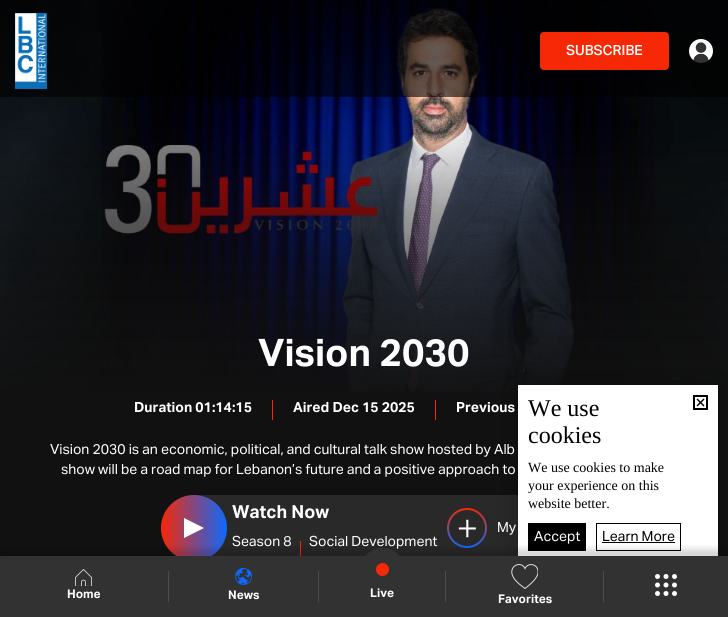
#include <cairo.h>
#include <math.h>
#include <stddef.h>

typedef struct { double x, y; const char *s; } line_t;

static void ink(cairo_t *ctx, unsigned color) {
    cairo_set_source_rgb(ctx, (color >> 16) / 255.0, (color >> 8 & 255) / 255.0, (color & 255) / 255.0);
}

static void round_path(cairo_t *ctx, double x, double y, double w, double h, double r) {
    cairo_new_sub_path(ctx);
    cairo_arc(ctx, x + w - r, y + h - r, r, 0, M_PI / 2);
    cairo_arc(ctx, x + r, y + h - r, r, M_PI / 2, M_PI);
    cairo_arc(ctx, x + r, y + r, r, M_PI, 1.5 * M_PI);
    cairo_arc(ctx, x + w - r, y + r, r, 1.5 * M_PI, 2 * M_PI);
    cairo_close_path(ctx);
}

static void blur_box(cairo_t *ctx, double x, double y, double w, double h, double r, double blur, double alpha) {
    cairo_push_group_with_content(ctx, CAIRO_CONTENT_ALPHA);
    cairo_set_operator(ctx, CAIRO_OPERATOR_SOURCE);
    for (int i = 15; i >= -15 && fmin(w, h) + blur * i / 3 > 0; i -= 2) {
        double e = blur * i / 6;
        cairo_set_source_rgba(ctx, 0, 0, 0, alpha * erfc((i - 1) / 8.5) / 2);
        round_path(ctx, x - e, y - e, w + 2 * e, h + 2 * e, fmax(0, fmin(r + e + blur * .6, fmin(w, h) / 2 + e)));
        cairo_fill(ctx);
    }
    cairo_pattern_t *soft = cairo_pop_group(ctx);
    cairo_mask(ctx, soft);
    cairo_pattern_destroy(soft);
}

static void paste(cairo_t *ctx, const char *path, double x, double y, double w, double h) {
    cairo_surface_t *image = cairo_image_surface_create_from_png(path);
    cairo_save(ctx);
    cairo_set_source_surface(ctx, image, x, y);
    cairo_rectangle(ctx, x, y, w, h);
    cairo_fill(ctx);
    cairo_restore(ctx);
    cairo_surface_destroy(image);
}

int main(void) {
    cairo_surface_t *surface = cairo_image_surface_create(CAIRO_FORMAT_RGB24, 728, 617);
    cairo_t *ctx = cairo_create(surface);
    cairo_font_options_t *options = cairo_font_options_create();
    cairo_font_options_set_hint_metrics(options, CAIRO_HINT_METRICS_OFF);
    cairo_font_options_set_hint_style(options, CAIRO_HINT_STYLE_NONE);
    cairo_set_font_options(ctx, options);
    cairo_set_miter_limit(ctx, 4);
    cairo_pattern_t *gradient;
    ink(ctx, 0x111111);
    cairo_paint(ctx);
    paste(ctx, "media/6.png", 0, 0, 728, 392);
    cairo_set_source_rgba(ctx, 0, 0, 0, 0.6);
    cairo_rectangle(ctx, 0, 0, 728, 97);
    cairo_fill(ctx);
    paste(ctx, "media/1.png", 15, 13, 32, 76);
    ink(ctx, 0xF72805);
    round_path(ctx, 540, 32, 129, 38, 4);
    cairo_fill(ctx);
    cairo_select_font_face(ctx, "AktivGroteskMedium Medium", CAIRO_FONT_SLANT_NORMAL, CAIRO_FONT_WEIGHT_NORMAL);
    cairo_set_font_size(ctx, 14);
    ink(ctx, 0xFFFFFF);
    cairo_move_to(ctx, 566, 55);
    cairo_show_text(ctx, "SUBSCRIBE");
    paste(ctx, "media/2.png", 689, 39, 24, 24);
    ink(ctx, 0x292929);
    round_path(ctx, 161, 495, 406, 66, 33);
    cairo_fill(ctx);
    gradient = cairo_pattern_create_linear(161, 528, 227, 528);
    cairo_pattern_add_color_stop_rgba(gradient, 0, 0.969, 0.157, 0.02, 1);
    cairo_pattern_add_color_stop_rgba(gradient, 1, 0.055, 0.408, 0.988, 1);
    cairo_set_source(ctx, gradient);
    cairo_pattern_destroy(gradient);
    cairo_arc(ctx, 194, 528, 33, 0, 2 * M_PI);
    cairo_fill(ctx);
    ink(ctx, 0xF72805);
    cairo_rectangle(ctx, 300, 541, 1, 15);
    cairo_fill(ctx);
    paste(ctx, "media/7.png", 447, 508, 40, 40);
    gradient = cairo_pattern_create_linear(364, 122, 364, 617);
    cairo_pattern_add_color_stop_rgba(gradient, 0, 0.067, 0.067, 0.067, 0);
    cairo_pattern_add_color_stop_rgba(gradient, 0.18, 0.067, 0.067, 0.067, 0.4);
    cairo_pattern_add_color_stop_rgba(gradient, 0.58, 0.067, 0.067, 0.067, 1);
    cairo_pattern_add_color_stop_rgba(gradient, 1, 0.067, 0.067, 0.067, 1);
    cairo_set_source(ctx, gradient);
    cairo_pattern_destroy(gradient);
    cairo_rectangle(ctx, 0, 127, 728, 265);
    cairo_fill(ctx);
    ink(ctx, 0x000000);
    blur_box(ctx, 515, 382, 206, 182, 0, 12, 0.2);
    ink(ctx, 0xFFFFFF);
    cairo_rectangle(ctx, 518, 385, 200, 171);
    cairo_fill(ctx);
    ink(ctx, 0x000000);
    cairo_rectangle(ctx, 528, 523, 58, 28);
    cairo_fill(ctx);
    cairo_rectangle(ctx, 596.5, 523.5, 84, 27);
    cairo_set_line_width(ctx, 1);
    cairo_stroke(ctx);
    cairo_rectangle(ctx, 602, 542, 73, 1);
    cairo_fill(ctx);
    ink(ctx, 0x000000);
    blur_box(ctx, 0, 549, 728, 61, 0, 3, 0.16);
    ink(ctx, 0x323232);
    cairo_rectangle(ctx, 0, 556, 728, 61);
    cairo_fill(ctx);
    paste(ctx, "media/3.png", 75, 569, 17, 17);
    cairo_select_font_face(ctx, "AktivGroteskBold", CAIRO_FONT_SLANT_NORMAL, CAIRO_FONT_WEIGHT_BOLD);
    cairo_set_font_size(ctx, 12);
    ink(ctx, 0xFFFFFF);
    cairo_move_to(ctx, 67, 598);
    cairo_show_text(ctx, "Home");
    ink(ctx, 0x4D4D4D);
    cairo_rectangle(ctx, 168, 571, 1, 31);
    cairo_fill(ctx);
    paste(ctx, "media/4.png", 235, 568, 17, 17);
    ink(ctx, 0xFFFFFF);
    cairo_move_to(ctx, 228, 599);
    cairo_show_text(ctx, "News");
    ink(ctx, 0x4D4D4D);
    cairo_rectangle(ctx, 318, 571, 1, 31);
    cairo_fill(ctx);
    cairo_select_font_face(ctx, "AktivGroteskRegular", CAIRO_FONT_SLANT_NORMAL, CAIRO_FONT_WEIGHT_NORMAL);
    cairo_set_font_size(ctx, 14);
    ink(ctx, 0xFFFFFF);
    cairo_move_to(ctx, 309, 546);
    cairo_show_text(ctx, "Social Development");
    ink(ctx, 0x323232);
    cairo_new_path(ctx);
    cairo_arc(ctx, 382.5, 570.5, 22.5, 0, 2 * M_PI);
    cairo_fill(ctx);
    ink(ctx, 0xF72805);
    cairo_arc(ctx, 382.5, 569.5, 6.5, 0, 2 * M_PI);
    cairo_fill(ctx);
    cairo_select_font_face(ctx, "AktivGroteskBold", CAIRO_FONT_SLANT_NORMAL, CAIRO_FONT_WEIGHT_BOLD);
    cairo_set_font_size(ctx, 12);
    ink(ctx, 0xFFFFFF);
    cairo_move_to(ctx, 370, 597);
    cairo_show_text(ctx, "Live");
    ink(ctx, 0x4D4D4D);
    cairo_rectangle(ctx, 445, 571, 1, 31);
    cairo_fill(ctx);
    cairo_save(ctx);
    cairo_rectangle(ctx, 511, 564, 27, 25);
    cairo_clip(ctx);
    cairo_new_path(ctx);
    cairo_move_to(ctx, 538, 571.5);
    cairo_curve_to(ctx, 538, 564, 528, 562, 525, 568.5);
    cairo_curve_to(ctx, 520.5, 559.5, 507, 567, 513.5, 577.5);
    cairo_curve_to(ctx, 516, 582, 521, 585.5, 525, 588.5);
    cairo_curve_to(ctx, 529.5, 585, 538.5, 578, 538, 571.5);
    ink(ctx, 0xDDDDDD);
    cairo_stroke(ctx);
    cairo_restore(ctx);
    ink(ctx, 0xFFFFFF);
    cairo_move_to(ctx, 498, 603);
    cairo_show_text(ctx, "Favorites");
    ink(ctx, 0x4D4D4D);
    cairo_rectangle(ctx, 603, 571, 1, 31);
    cairo_fill(ctx);
    paste(ctx, "media/5.png", 655, 574, 22, 22);
    cairo_set_font_size(ctx, 38);
    ink(ctx, 0xFFFFFF);
    cairo_move_to(ctx, 258, 366);
    cairo_show_text(ctx, "Vision 2030");
    cairo_set_font_size(ctx, 14);
    cairo_move_to(ctx, 134, 412);
    cairo_show_text(ctx, "Duration 01:14:15");
    ink(ctx, 0xF72805);
    cairo_rectangle(ctx, 272, 400, 1, 20);
    cairo_fill(ctx);
    ink(ctx, 0xFFFFFF);
    cairo_move_to(ctx, 293, 412);
    cairo_show_text(ctx, "Aired Dec 15 2025");
    ink(ctx, 0xF72805);
    cairo_rectangle(ctx, 435, 400, 1, 20);
    cairo_fill(ctx);
    ink(ctx, 0xFFFFFF);
    cairo_move_to(ctx, 456, 412);
    cairo_show_text(ctx, "Previous");
    cairo_select_font_face(ctx, "AktivGroteskRegular", CAIRO_FONT_SLANT_NORMAL, CAIRO_FONT_WEIGHT_NORMAL);
    cairo_move_to(ctx, 50, 454);
    cairo_show_text(ctx, "Vision 2030 is an economic, political, and cultural talk show hosted by Alb");
    cairo_move_to(ctx, 61, 474);
    cairo_show_text(ctx, "show will be a road map for Lebanon’s future and a positive approach to");
    cairo_new_path(ctx);
    cairo_move_to(ctx, 184, 538);
    cairo_line_to(ctx, 184, 518);
    cairo_line_to(ctx, 204, 528);
    cairo_close_path(ctx);
    cairo_fill(ctx);
    cairo_select_font_face(ctx, "AktivGroteskBold", CAIRO_FONT_SLANT_NORMAL, CAIRO_FONT_WEIGHT_BOLD);
    cairo_set_font_size(ctx, 18);
    cairo_move_to(ctx, 232, 518);
    cairo_show_text(ctx, "Watch Now");
    cairo_select_font_face(ctx, "AktivGroteskRegular", CAIRO_FONT_SLANT_NORMAL, CAIRO_FONT_WEIGHT_NORMAL);
    cairo_set_font_size(ctx, 14);
    cairo_move_to(ctx, 232, 546);
    cairo_show_text(ctx, "Season 8");
    cairo_move_to(ctx, 497, 532);
    cairo_show_text(ctx, "My");
    cairo_select_font_face(ctx, "Liberation Serif", CAIRO_FONT_SLANT_NORMAL, CAIRO_FONT_WEIGHT_NORMAL);
    cairo_set_font_size(ctx, 24);
    ink(ctx, 0x000000);
    cairo_move_to(ctx, 528, 416);
    cairo_show_text(ctx, "We use");
    cairo_move_to(ctx, 528, 443);
    cairo_show_text(ctx, "cookies");
    cairo_rectangle(ctx, 694, 396, 13, 13);
    cairo_set_line_width(ctx, 2);
    cairo_stroke(ctx);
    cairo_new_path(ctx);
    cairo_move_to(ctx, 696.5, 399.5);
    cairo_line_to(ctx, 697.5, 398.5);
    cairo_line_to(ctx, 704.5, 405.5);
    cairo_line_to(ctx, 703.5, 406.5);
    cairo_close_path(ctx);
    cairo_fill(ctx);
    cairo_new_path(ctx);
    cairo_move_to(ctx, 703.5, 398.5);
    cairo_line_to(ctx, 704.5, 399.5);
    cairo_line_to(ctx, 697.5, 406.5);
    cairo_line_to(ctx, 696.5, 405.5);
    cairo_close_path(ctx);
    cairo_fill(ctx);
    cairo_set_font_size(ctx, 14);
    {
        static const line_t items[] = {
            {528, 472, "We use cookies to make"},
            {528, 490, "your experience on this"},
            {528, 508, "website better."},
        };
        for (size_t i = 0; i < sizeof items / sizeof *items; i++) {
            cairo_move_to(ctx, items[i].x, items[i].y);
            cairo_show_text(ctx, items[i].s);
        }
    }
    cairo_select_font_face(ctx, "AktivGroteskRegular", CAIRO_FONT_SLANT_NORMAL, CAIRO_FONT_WEIGHT_NORMAL);
    ink(ctx, 0xFFFFFF);
    cairo_move_to(ctx, 534, 541);
    cairo_show_text(ctx, "Accept");
    ink(ctx, 0x000000);
    cairo_move_to(ctx, 602, 541);
    cairo_show_text(ctx, "Learn More");
    cairo_surface_write_to_png(surface, "image.png");
    cairo_font_options_destroy(options);
    cairo_destroy(ctx);
    cairo_surface_destroy(surface);
    return 0;
}
